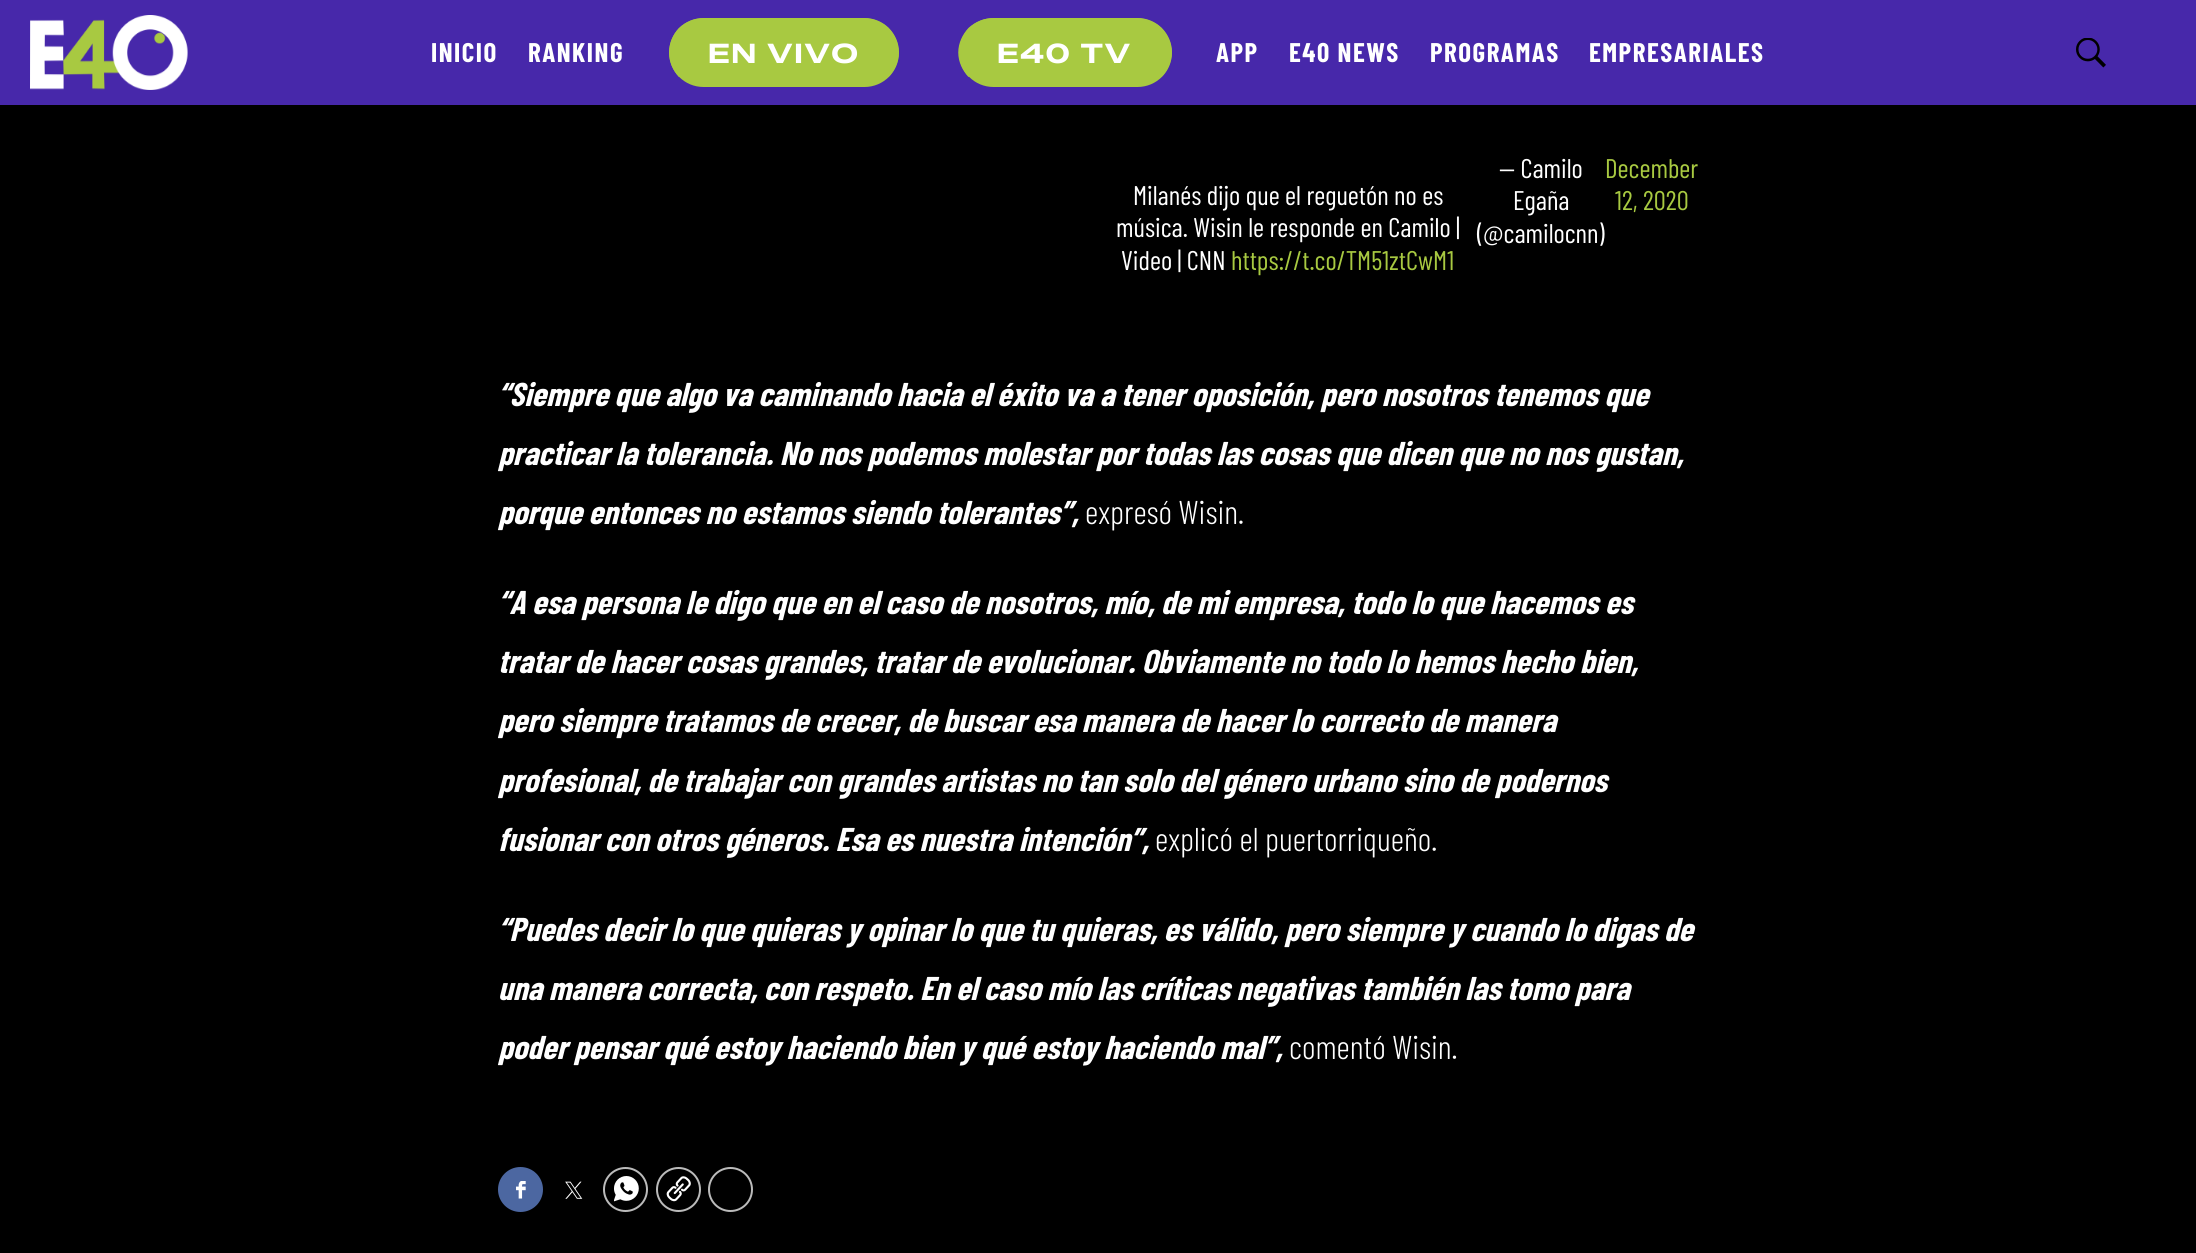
#include <cairo.h>
#include <math.h>
#include <stddef.h>

typedef struct { double x, y; const char *s; } line_t;

static void ink(cairo_t *ctx, unsigned color) {
    cairo_set_source_rgb(ctx, (color >> 16) / 255.0, (color >> 8 & 255) / 255.0, (color & 255) / 255.0);
}

static void write_spaced(cairo_t *ctx, double x, double y, const char *s, double letter, double word) {
    cairo_move_to(ctx, x, y);
    while (*s) {
        char ch[5] = {0};
        int n = 0;
        do ch[n++] = *s++; while ((*s & 0xC0) == 0x80);
        cairo_show_text(ctx, ch);
        cairo_rel_move_to(ctx, letter + word * (*ch == ' '), 0);
    }
}

static void round_path(cairo_t *ctx, double x, double y, double w, double h, double r) {
    cairo_new_sub_path(ctx);
    cairo_arc(ctx, x + w - r, y + h - r, r, 0, M_PI / 2);
    cairo_arc(ctx, x + r, y + h - r, r, M_PI / 2, M_PI);
    cairo_arc(ctx, x + r, y + r, r, M_PI, 1.5 * M_PI);
    cairo_arc(ctx, x + w - r, y + r, r, 1.5 * M_PI, 2 * M_PI);
    cairo_close_path(ctx);
}

static void paste(cairo_t *ctx, const char *path, double x, double y, double w, double h) {
    cairo_surface_t *image = cairo_image_surface_create_from_png(path);
    cairo_save(ctx);
    cairo_set_source_surface(ctx, image, x, y);
    cairo_rectangle(ctx, x, y, w, h);
    cairo_fill(ctx);
    cairo_restore(ctx);
    cairo_surface_destroy(image);
}

int main(void) {
    cairo_surface_t *surface = cairo_image_surface_create(CAIRO_FORMAT_RGB24, 2196, 1253);
    cairo_t *ctx = cairo_create(surface);
    cairo_font_options_t *options = cairo_font_options_create();
    cairo_font_options_set_hint_metrics(options, CAIRO_HINT_METRICS_OFF);
    cairo_font_options_set_hint_style(options, CAIRO_HINT_STYLE_NONE);
    cairo_set_font_options(ctx, options);
    cairo_set_miter_limit(ctx, 4);
    ink(ctx, 0x000000);
    cairo_paint(ctx);
    ink(ctx, 0x4728AA);
    cairo_rectangle(ctx, 0, 0, 2196, 105);
    cairo_fill(ctx);
    paste(ctx, "media/1.png", 30, 15, 158, 75);
    cairo_select_font_face(ctx, "Barlow Condensed", CAIRO_FONT_SLANT_NORMAL, CAIRO_FONT_WEIGHT_BOLD);
    cairo_set_font_size(ctx, 27);
    ink(ctx, 0xFFFFFF);
    write_spaced(ctx, 431, 62, "INICIO", 1.5, 0);
    write_spaced(ctx, 528, 62, "RANKING", 1.5, 0);
    ink(ctx, 0xA8C941);
    round_path(ctx, 669, 18, 230, 69, 34.5);
    cairo_fill(ctx);
    cairo_new_path(ctx);
    cairo_move_to(ctx, 679.5, 76.5);
    cairo_curve_to(ctx, 673.5, 70, 670, 61.5, 670, 52.5);
    cairo_curve_to(ctx, 670, 43.5, 673.5, 35, 679.5, 28.5);
    cairo_curve_to(ctx, 686, 22.5, 694.5, 19, 703.5, 19);
    cairo_line_to(ctx, 864, 19);
    cairo_curve_to(ctx, 873, 19, 881.5, 22.5, 888, 28.5);
    cairo_curve_to(ctx, 894, 35, 898, 43.5, 898, 52.5);
    cairo_curve_to(ctx, 898, 61.5, 894, 70, 888, 76.5);
    cairo_set_line_width(ctx, 1.5);
    cairo_stroke(ctx);
    cairo_select_font_face(ctx, "Zalando Sans Expanded", CAIRO_FONT_SLANT_NORMAL, CAIRO_FONT_WEIGHT_BOLD);
    ink(ctx, 0xFFFFFF);
    write_spaced(ctx, 708, 63, "EN VIVO", 1.5, 0);
    ink(ctx, 0xA8C941);
    round_path(ctx, 959, 18, 213, 69, 34.5);
    cairo_fill(ctx);
    cairo_new_path(ctx);
    cairo_move_to(ctx, 969, 76.5);
    cairo_curve_to(ctx, 963, 70, 959, 61.5, 959, 52.5);
    cairo_curve_to(ctx, 959, 43.5, 963, 35, 969, 28.5);
    cairo_curve_to(ctx, 975.5, 22.5, 984, 19, 993, 19);
    cairo_line_to(ctx, 1137, 19);
    cairo_curve_to(ctx, 1146, 19, 1154.5, 22.5, 1161, 28.5);
    cairo_curve_to(ctx, 1167, 35, 1171, 43.5, 1171, 52.5);
    cairo_curve_to(ctx, 1171, 61.5, 1167, 70, 1161, 76.5);
    cairo_stroke(ctx);
    ink(ctx, 0xFFFFFF);
    write_spaced(ctx, 997, 63, "E40 TV", 1.5, 0);
    cairo_select_font_face(ctx, "Barlow Condensed", CAIRO_FONT_SLANT_NORMAL, CAIRO_FONT_WEIGHT_BOLD);
    {
        static const line_t items[] = {
            {1216, 62, "APP"},
            {1289, 62, "E40 NEWS"},
            {1430, 62, "PROGRAMAS"},
            {1589, 62, "EMPRESARIALES"},
        };
        for (size_t i = 0; i < sizeof items / sizeof *items; i++) {
            write_spaced(ctx, items[i].x, items[i].y, items[i].s, 1.5, 0);
        }
    }
    paste(ctx, "media/2.png", 2076, 38, 30, 30);
    cairo_select_font_face(ctx, "Barlow Condensed", CAIRO_FONT_SLANT_NORMAL, CAIRO_FONT_WEIGHT_NORMAL);
    {
        static const line_t items[] = {
            {1133, 205, "Milanés dijo que el reguetón no es"},
            {1116, 237, "música. Wisin le responde en Camilo |"},
            {1121, 270, "Video | CNN"},
        };
        for (size_t i = 0; i < sizeof items / sizeof *items; i++) {
            cairo_move_to(ctx, items[i].x, items[i].y);
            cairo_show_text(ctx, items[i].s);
        }
    }
    ink(ctx, 0xA8C941);
    cairo_move_to(ctx, 1231, 270);
    cairo_show_text(ctx, "https://t.co/TM51ztCwM1");
    ink(ctx, 0xFFFFFF);
    cairo_move_to(ctx, 1499, 178);
    cairo_show_text(ctx, "— Camilo");
    ink(ctx, 0xA8C941);
    cairo_move_to(ctx, 1605, 178);
    cairo_show_text(ctx, "December");
    cairo_move_to(ctx, 1615, 210);
    cairo_show_text(ctx, "12, 2020");
    ink(ctx, 0xFFFFFF);
    cairo_move_to(ctx, 1513, 210);
    cairo_show_text(ctx, "Egaña");
    cairo_move_to(ctx, 1477, 243);
    cairo_show_text(ctx, "(@camilocnn)");
    cairo_select_font_face(ctx, "Barlow Condensed", CAIRO_FONT_SLANT_ITALIC, CAIRO_FONT_WEIGHT_BOLD);
    cairo_set_font_size(ctx, 33);
    {
        static const line_t items[] = {
            {498, 406, "“Siempre que algo va caminando hacia el éxito va a tener oposición, pero nosotros tenemos que"},
            {498, 465, "practicar la tolerancia. No nos podemos molestar por todas las cosas que dicen que no nos gustan,"},
            {498, 524, "porque entonces no estamos siendo tolerantes”,"},
        };
        for (size_t i = 0; i < sizeof items / sizeof *items; i++) {
            cairo_move_to(ctx, items[i].x, items[i].y);
            cairo_show_text(ctx, items[i].s);
        }
    }
    cairo_select_font_face(ctx, "Barlow Condensed Light", CAIRO_FONT_SLANT_NORMAL, CAIRO_FONT_WEIGHT_NORMAL);
    cairo_move_to(ctx, 1085, 524);
    cairo_show_text(ctx, "expresó Wisin.");
    cairo_select_font_face(ctx, "Barlow Condensed", CAIRO_FONT_SLANT_ITALIC, CAIRO_FONT_WEIGHT_BOLD);
    {
        static const line_t items[] = {
            {498, 614, "“A esa persona le digo que en el caso de nosotros, mío, de mi empresa, todo lo que hacemos es"},
            {498, 673, "tratar de hacer cosas grandes, tratar de evolucionar. Obviamente no todo lo hemos hecho bien,"},
            {498, 732, "pero siempre tratamos de crecer, de buscar esa manera de hacer lo correcto de manera"},
            {498, 792, "profesional, de trabajar con grandes artistas no tan solo del género urbano sino de podernos"},
            {498, 851, "fusionar con otros géneros. Esa es nuestra intención”,"},
        };
        for (size_t i = 0; i < sizeof items / sizeof *items; i++) {
            cairo_move_to(ctx, items[i].x, items[i].y);
            cairo_show_text(ctx, items[i].s);
        }
    }
    cairo_select_font_face(ctx, "Barlow Condensed Light", CAIRO_FONT_SLANT_NORMAL, CAIRO_FONT_WEIGHT_NORMAL);
    cairo_move_to(ctx, 1155, 851);
    cairo_show_text(ctx, "explicó el puertorriqueño.");
    cairo_select_font_face(ctx, "Barlow Condensed", CAIRO_FONT_SLANT_ITALIC, CAIRO_FONT_WEIGHT_BOLD);
    {
        static const line_t items[] = {
            {498, 941, "“Puedes decir lo que quieras y opinar lo que tu quieras, es válido, pero siempre y cuando lo digas de"},
            {498, 1000, "una manera correcta, con respeto. En el caso mío las críticas negativas también las tomo para"},
            {498, 1059, "poder pensar qué estoy haciendo bien y qué estoy haciendo mal”,"},
        };
        for (size_t i = 0; i < sizeof items / sizeof *items; i++) {
            cairo_move_to(ctx, items[i].x, items[i].y);
            cairo_show_text(ctx, items[i].s);
        }
    }
    cairo_select_font_face(ctx, "Barlow Condensed Light", CAIRO_FONT_SLANT_NORMAL, CAIRO_FONT_WEIGHT_NORMAL);
    cairo_move_to(ctx, 1289, 1059);
    cairo_show_text(ctx, "comentó Wisin.");
    ink(ctx, 0x4C67A1);
    cairo_new_path(ctx);
    cairo_arc(ctx, 520.5, 1189.5, 22.5, 0, 2 * M_PI);
    cairo_fill(ctx);
    paste(ctx, "media/3.png", 516, 1181, 10, 18);
    paste(ctx, "media/4.png", 565, 1181, 18, 18);
    cairo_arc(ctx, 625.5, 1189.5, 21.5, 0, 2 * M_PI);
    ink(ctx, 0xBBBBBB);
    cairo_set_line_width(ctx, 2);
    cairo_stroke(ctx);
    paste(ctx, "media/5.png", 614, 1176, 25, 26);
    cairo_arc(ctx, 678.5, 1189.5, 21.5, 0, 2 * M_PI);
    cairo_stroke(ctx);
    paste(ctx, "media/6.png", 666, 1176, 25, 26);
    cairo_arc(ctx, 730.5, 1189.5, 21.5, 0, 2 * M_PI);
    cairo_stroke(ctx);
    cairo_surface_write_to_png(surface, "image.png");
    cairo_font_options_destroy(options);
    cairo_destroy(ctx);
    cairo_surface_destroy(surface);
    return 0;
}
